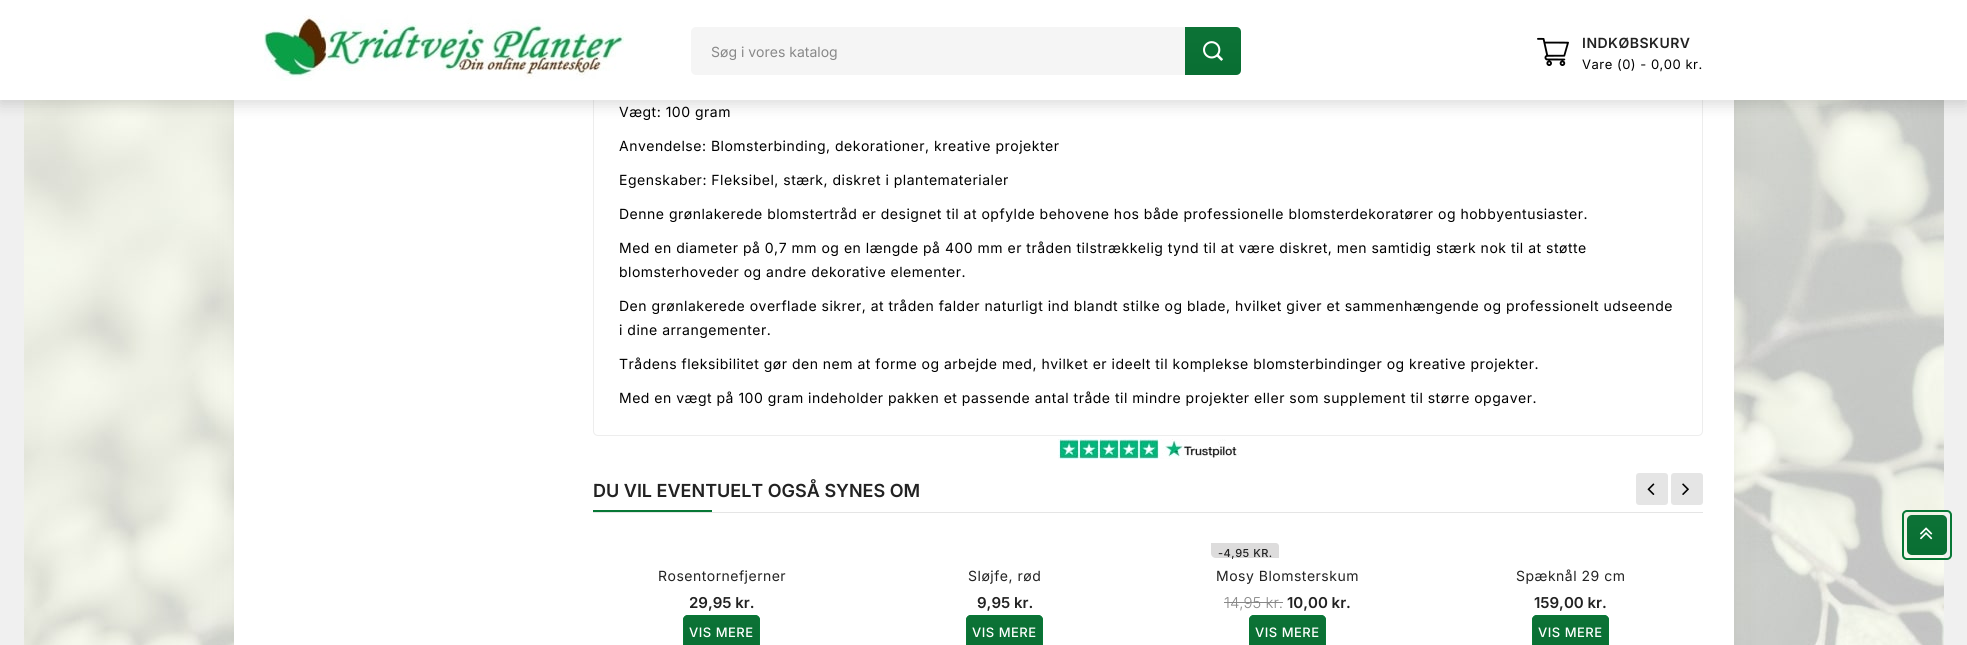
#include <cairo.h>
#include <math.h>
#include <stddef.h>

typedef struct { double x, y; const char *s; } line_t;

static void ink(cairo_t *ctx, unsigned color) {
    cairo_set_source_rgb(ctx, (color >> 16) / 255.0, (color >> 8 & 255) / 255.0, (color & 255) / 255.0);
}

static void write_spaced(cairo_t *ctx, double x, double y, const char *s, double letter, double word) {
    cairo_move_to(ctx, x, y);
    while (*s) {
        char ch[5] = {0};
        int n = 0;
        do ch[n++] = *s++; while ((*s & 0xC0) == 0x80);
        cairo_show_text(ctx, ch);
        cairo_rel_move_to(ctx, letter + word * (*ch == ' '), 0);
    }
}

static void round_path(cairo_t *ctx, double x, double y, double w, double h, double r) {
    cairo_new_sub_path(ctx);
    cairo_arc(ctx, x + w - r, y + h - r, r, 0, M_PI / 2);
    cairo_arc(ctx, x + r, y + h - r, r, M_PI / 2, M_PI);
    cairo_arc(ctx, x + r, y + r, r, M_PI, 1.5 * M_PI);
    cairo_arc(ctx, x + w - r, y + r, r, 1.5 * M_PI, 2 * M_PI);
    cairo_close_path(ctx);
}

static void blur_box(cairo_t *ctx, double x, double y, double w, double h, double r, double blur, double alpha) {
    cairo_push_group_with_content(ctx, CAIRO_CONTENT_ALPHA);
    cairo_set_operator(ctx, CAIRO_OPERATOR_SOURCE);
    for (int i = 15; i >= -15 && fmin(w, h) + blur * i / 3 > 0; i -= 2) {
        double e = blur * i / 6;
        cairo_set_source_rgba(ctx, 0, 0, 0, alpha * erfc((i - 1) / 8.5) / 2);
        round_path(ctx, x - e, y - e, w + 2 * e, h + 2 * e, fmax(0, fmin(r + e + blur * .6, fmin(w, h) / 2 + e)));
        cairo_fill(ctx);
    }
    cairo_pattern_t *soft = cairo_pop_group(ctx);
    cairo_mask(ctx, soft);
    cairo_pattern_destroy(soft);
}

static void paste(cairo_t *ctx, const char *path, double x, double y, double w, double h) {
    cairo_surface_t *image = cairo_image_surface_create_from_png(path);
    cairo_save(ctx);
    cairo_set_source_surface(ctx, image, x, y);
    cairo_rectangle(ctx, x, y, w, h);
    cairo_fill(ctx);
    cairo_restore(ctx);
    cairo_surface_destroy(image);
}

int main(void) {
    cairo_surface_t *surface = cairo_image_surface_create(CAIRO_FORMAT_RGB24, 1967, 645);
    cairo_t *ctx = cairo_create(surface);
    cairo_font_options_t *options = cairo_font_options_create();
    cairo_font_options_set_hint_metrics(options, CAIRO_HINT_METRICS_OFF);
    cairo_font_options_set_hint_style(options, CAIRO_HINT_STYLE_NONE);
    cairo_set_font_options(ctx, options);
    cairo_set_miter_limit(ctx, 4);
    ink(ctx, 0xF0F0F0);
    cairo_paint(ctx);
    paste(ctx, "media/1.png", 24, 100, 1920, 545);
    ink(ctx, 0x000000);
    blur_box(ctx, 234, -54, 1500, 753, 10, 14.5, 0.05);
    ink(ctx, 0xFFFFFF);
    cairo_rectangle(ctx, 234, 100, 1500, 545);
    cairo_fill(ctx);
    cairo_new_path(ctx);
    cairo_move_to(ctx, 593.5, -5.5);
    cairo_line_to(ctx, 1702.5, -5.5);
    cairo_line_to(ctx, 1702.5, 431);
    cairo_curve_to(ctx, 1702.5, 433.5, 1700.5, 435.5, 1698, 435.5);
    cairo_line_to(ctx, 598, 435.5);
    cairo_curve_to(ctx, 595.5, 435.5, 593.5, 433.5, 593.5, 431);
    cairo_close_path(ctx);
    ink(ctx, 0xEDEDED);
    cairo_set_line_width(ctx, 1);
    cairo_stroke(ctx);
    ink(ctx, 0x000000);
    blur_box(ctx, 0, 4, 1967, 100, 0, 8, 0.15);
    ink(ctx, 0xFFFFFF);
    cairo_rectangle(ctx, 0, 0, 1967, 100);
    cairo_fill(ctx);
    paste(ctx, "media/2.png", 264, 15, 360, 66);
    ink(ctx, 0xF5F5F5);
    round_path(ctx, 691, 27, 550, 48, 5);
    cairo_fill(ctx);
    cairo_select_font_face(ctx, "Inter", CAIRO_FONT_SLANT_NORMAL, CAIRO_FONT_WEIGHT_NORMAL);
    cairo_set_font_size(ctx, 14);
    ink(ctx, 0x888888);
    cairo_move_to(ctx, 711, 57);
    cairo_show_text(ctx, "Søg i vores katalog");
    ink(ctx, 0x077836);
    cairo_new_path(ctx);
    cairo_move_to(ctx, 1185, 27);
    cairo_line_to(ctx, 1236, 27);
    cairo_curve_to(ctx, 1239, 27, 1241, 29, 1241, 32);
    cairo_line_to(ctx, 1241, 70);
    cairo_curve_to(ctx, 1241, 73, 1239, 75, 1236, 75);
    cairo_line_to(ctx, 1185, 75);
    cairo_close_path(ctx);
    cairo_fill(ctx);
    paste(ctx, "media/3.png", 1185, 27, 56, 48);
    paste(ctx, "media/4.png", 1203, 41, 20, 20);
    paste(ctx, "media/5.png", 1537, 37, 32, 29);
    cairo_select_font_face(ctx, "Inter SemiBold", CAIRO_FONT_SLANT_NORMAL, CAIRO_FONT_WEIGHT_NORMAL);
    ink(ctx, 0x222222);
    write_spaced(ctx, 1582, 48, "INDKØBSKURV", 0.5, 0);
    cairo_select_font_face(ctx, "Inter", CAIRO_FONT_SLANT_NORMAL, CAIRO_FONT_WEIGHT_NORMAL);
    cairo_set_font_size(ctx, 13);
    ink(ctx, 0x000000);
    write_spaced(ctx, 1582, 69, "Vare (0) - 0,00 kr.", 0.5, 0);
    cairo_set_font_size(ctx, 14);
    {
        static const line_t items[] = {
            {619, 117, "Vægt: 100 gram"},
            {619, 151, "Anvendelse: Blomsterbinding, dekorationer, kreative projekter"},
            {619, 185, "Egenskaber: Fleksibel, stærk, diskret i plantematerialer"},
            {619, 219, "Denne grønlakerede blomstertråd er designet til at opfylde behovene hos både professionelle blomsterdekoratører og hobbyentusiaster."},
            {619, 253, "Med en diameter på 0,7 mm og en længde på 400 mm er tråden tilstrækkelig tynd til at være diskret, men samtidig stærk nok til at støtte"},
            {619, 277, "blomsterhoveder og andre dekorative elementer."},
            {619, 311, "Den grønlakerede overflade sikrer, at tråden falder naturligt ind blandt stilke og blade, hvilket giver et sammenhængende og professionelt udseende"},
            {619, 335, "i dine arrangementer."},
            {619, 369, "Trådens fleksibilitet gør den nem at forme og arbejde med, hvilket er ideelt til komplekse blomsterbindinger og kreative projekter."},
            {619, 403, "Med en vægt på 100 gram indeholder pakken et passende antal tråde til mindre projekter eller som supplement til større opgaver."},
        };
        for (size_t i = 0; i < sizeof items / sizeof *items; i++) {
            write_spaced(ctx, items[i].x, items[i].y, items[i].s, 0.5, 0);
        }
    }
    paste(ctx, "media/6.png", 1058, 439, 181, 20);
    ink(ctx, 0xE5E5E5);
    cairo_rectangle(ctx, 593, 512, 1110, 1);
    cairo_fill(ctx);
    cairo_select_font_face(ctx, "Inter SemiBold", CAIRO_FONT_SLANT_NORMAL, CAIRO_FONT_WEIGHT_NORMAL);
    cairo_set_font_size(ctx, 18);
    ink(ctx, 0x222222);
    cairo_move_to(ctx, 593, 497);
    cairo_show_text(ctx, "DU VIL EVENTUELT OGSÅ SYNES OM");
    ink(ctx, 0x077836);
    cairo_rectangle(ctx, 593, 510, 119, 2);
    cairo_fill(ctx);
    ink(ctx, 0xE5E5E5);
    round_path(ctx, 1636, 473, 32, 32, 3);
    cairo_fill(ctx);
    paste(ctx, "media/7.png", 1647, 483, 8, 12);
    round_path(ctx, 1671, 473, 32, 32, 3);
    cairo_fill(ctx);
    paste(ctx, "media/8.png", 1682, 483, 7, 12);
    cairo_select_font_face(ctx, "Inter", CAIRO_FONT_SLANT_NORMAL, CAIRO_FONT_WEIGHT_NORMAL);
    cairo_set_font_size(ctx, 14);
    ink(ctx, 0x222222);
    write_spaced(ctx, 658, 581, "Rosentornefjerner", 0.5, 0);
    cairo_select_font_face(ctx, "Inter SemiBold", CAIRO_FONT_SLANT_NORMAL, CAIRO_FONT_WEIGHT_NORMAL);
    cairo_set_font_size(ctx, 15);
    cairo_move_to(ctx, 689, 608);
    cairo_show_text(ctx, "29,95 kr.");
    ink(ctx, 0x077836);
    round_path(ctx, 683, 615, 77, 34, 5);
    cairo_fill(ctx);
    paste(ctx, "media/9.png", 683, 615, 77, 30);
    round_path(ctx, 683.5, 615.5, 76, 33, 4.5);
    cairo_stroke(ctx);
    cairo_select_font_face(ctx, "Inter Medium", CAIRO_FONT_SLANT_NORMAL, CAIRO_FONT_WEIGHT_NORMAL);
    cairo_set_font_size(ctx, 13);
    ink(ctx, 0xFFFFFF);
    write_spaced(ctx, 689, 637, "VIS MERE", 0.5, 0);
    cairo_select_font_face(ctx, "Inter", CAIRO_FONT_SLANT_NORMAL, CAIRO_FONT_WEIGHT_NORMAL);
    cairo_set_font_size(ctx, 14);
    ink(ctx, 0x222222);
    write_spaced(ctx, 968, 581, "Sløjfe, rød", 0.5, 0);
    cairo_select_font_face(ctx, "Inter SemiBold", CAIRO_FONT_SLANT_NORMAL, CAIRO_FONT_WEIGHT_NORMAL);
    cairo_set_font_size(ctx, 15);
    cairo_move_to(ctx, 977, 608);
    cairo_show_text(ctx, "9,95 kr.");
    ink(ctx, 0x077836);
    round_path(ctx, 966, 615, 77, 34, 5);
    cairo_fill(ctx);
    paste(ctx, "media/9.png", 966, 615, 77, 30);
    round_path(ctx, 966.5, 615.5, 76, 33, 4.5);
    cairo_stroke(ctx);
    cairo_select_font_face(ctx, "Inter Medium", CAIRO_FONT_SLANT_NORMAL, CAIRO_FONT_WEIGHT_NORMAL);
    cairo_set_font_size(ctx, 13);
    ink(ctx, 0xFFFFFF);
    write_spaced(ctx, 972, 637, "VIS MERE", 0.5, 0);
    ink(ctx, 0xDDDCDC);
    cairo_new_path(ctx);
    cairo_move_to(ctx, 1211, 543);
    cairo_line_to(ctx, 1276, 543);
    cairo_curve_to(ctx, 1277.5, 543, 1279, 544.5, 1279, 546);
    cairo_line_to(ctx, 1279, 558);
    cairo_line_to(ctx, 1216, 558);
    cairo_curve_to(ctx, 1213, 558, 1211, 556, 1211, 553);
    cairo_close_path(ctx);
    cairo_fill(ctx);
    cairo_set_font_size(ctx, 11);
    ink(ctx, 0x222222);
    write_spaced(ctx, 1218, 557, "-4,95 KR.", 0.5, 0);
    cairo_select_font_face(ctx, "Inter", CAIRO_FONT_SLANT_NORMAL, CAIRO_FONT_WEIGHT_NORMAL);
    cairo_set_font_size(ctx, 14);
    write_spaced(ctx, 1216, 581, "Mosy Blomsterskum", 0.5, 0);
    cairo_select_font_face(ctx, "Inter Light", CAIRO_FONT_SLANT_NORMAL, CAIRO_FONT_WEIGHT_NORMAL);
    cairo_set_font_size(ctx, 15);
    ink(ctx, 0x888888);
    cairo_move_to(ctx, 1224, 608);
    cairo_show_text(ctx, "14,95 kr.");
    cairo_rectangle(ctx, 1224, 602, 59, 1);
    cairo_fill(ctx);
    cairo_select_font_face(ctx, "Inter SemiBold", CAIRO_FONT_SLANT_NORMAL, CAIRO_FONT_WEIGHT_NORMAL);
    ink(ctx, 0x222222);
    cairo_move_to(ctx, 1287, 608);
    cairo_show_text(ctx, "10,00 kr.");
    ink(ctx, 0x077836);
    round_path(ctx, 1249, 615, 77, 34, 5);
    cairo_fill(ctx);
    paste(ctx, "media/9.png", 1249, 615, 77, 30);
    round_path(ctx, 1249.5, 615.5, 76, 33, 4.5);
    cairo_stroke(ctx);
    cairo_select_font_face(ctx, "Inter Medium", CAIRO_FONT_SLANT_NORMAL, CAIRO_FONT_WEIGHT_NORMAL);
    cairo_set_font_size(ctx, 13);
    ink(ctx, 0xFFFFFF);
    write_spaced(ctx, 1255, 637, "VIS MERE", 0.5, 0);
    cairo_select_font_face(ctx, "Inter", CAIRO_FONT_SLANT_NORMAL, CAIRO_FONT_WEIGHT_NORMAL);
    cairo_set_font_size(ctx, 14);
    ink(ctx, 0x222222);
    write_spaced(ctx, 1516, 581, "Spæknål 29 cm", 0.5, 0);
    cairo_select_font_face(ctx, "Inter SemiBold", CAIRO_FONT_SLANT_NORMAL, CAIRO_FONT_WEIGHT_NORMAL);
    cairo_set_font_size(ctx, 15);
    cairo_move_to(ctx, 1534, 608);
    cairo_show_text(ctx, "159,00 kr.");
    ink(ctx, 0x077836);
    round_path(ctx, 1532, 615, 77, 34, 5);
    cairo_fill(ctx);
    paste(ctx, "media/9.png", 1532, 615, 77, 30);
    round_path(ctx, 1532.5, 615.5, 76, 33, 4.5);
    cairo_stroke(ctx);
    cairo_select_font_face(ctx, "Inter Medium", CAIRO_FONT_SLANT_NORMAL, CAIRO_FONT_WEIGHT_NORMAL);
    cairo_set_font_size(ctx, 13);
    ink(ctx, 0xFFFFFF);
    write_spaced(ctx, 1538, 637, "VIS MERE", 0.5, 0);
    ink(ctx, 0x077836);
    round_path(ctx, 1907, 515, 40, 40, 5);
    cairo_fill(ctx);
    paste(ctx, "media/10.png", 1907, 515, 40, 40);
    paste(ctx, "media/11.png", 1920, 527, 13, 13);
    round_path(ctx, 1903, 511, 48, 48, 4);
    cairo_set_line_width(ctx, 2);
    cairo_stroke(ctx);
    cairo_surface_write_to_png(surface, "image.png");
    cairo_font_options_destroy(options);
    cairo_destroy(ctx);
    cairo_surface_destroy(surface);
    return 0;
}
